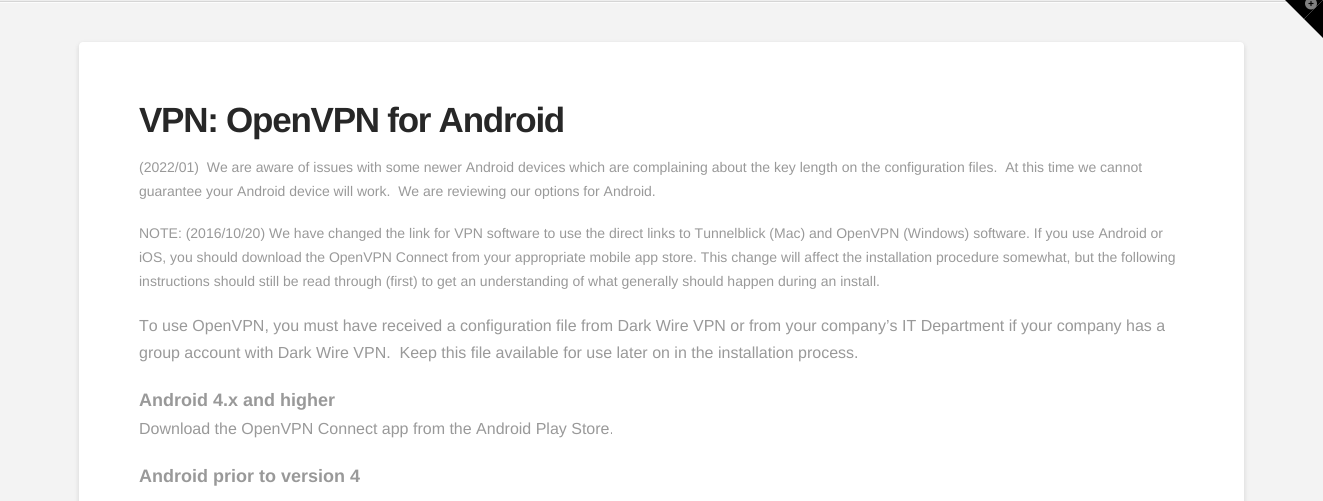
#include <cairo.h>
#include <math.h>
#include <stddef.h>

typedef struct { double x, y; const char *s; } line_t;
typedef struct { double x, y, w, h; unsigned color; } box_t;

static void ink(cairo_t *ctx, unsigned color) {
    cairo_set_source_rgb(ctx, (color >> 16) / 255.0, (color >> 8 & 255) / 255.0, (color & 255) / 255.0);
}

static void write_spaced(cairo_t *ctx, double x, double y, const char *s, double letter, double word) {
    cairo_move_to(ctx, x, y);
    while (*s) {
        char ch[5] = {0};
        int n = 0;
        do ch[n++] = *s++; while ((*s & 0xC0) == 0x80);
        cairo_show_text(ctx, ch);
        cairo_rel_move_to(ctx, letter + word * (*ch == ' '), 0);
    }
}

static void round_path(cairo_t *ctx, double x, double y, double w, double h, double r) {
    cairo_new_sub_path(ctx);
    cairo_arc(ctx, x + w - r, y + h - r, r, 0, M_PI / 2);
    cairo_arc(ctx, x + r, y + h - r, r, M_PI / 2, M_PI);
    cairo_arc(ctx, x + r, y + r, r, M_PI, 1.5 * M_PI);
    cairo_arc(ctx, x + w - r, y + r, r, 1.5 * M_PI, 2 * M_PI);
    cairo_close_path(ctx);
}

static void blur_box(cairo_t *ctx, double x, double y, double w, double h, double r, double blur, double alpha) {
    cairo_push_group_with_content(ctx, CAIRO_CONTENT_ALPHA);
    cairo_set_operator(ctx, CAIRO_OPERATOR_SOURCE);
    for (int i = 15; i >= -15 && fmin(w, h) + blur * i / 3 > 0; i -= 2) {
        double e = blur * i / 6;
        cairo_set_source_rgba(ctx, 0, 0, 0, alpha * erfc((i - 1) / 8.5) / 2);
        round_path(ctx, x - e, y - e, w + 2 * e, h + 2 * e, fmax(0, fmin(r + e + blur * .6, fmin(w, h) / 2 + e)));
        cairo_fill(ctx);
    }
    cairo_pattern_t *soft = cairo_pop_group(ctx);
    cairo_mask(ctx, soft);
    cairo_pattern_destroy(soft);
}

static void paste(cairo_t *ctx, const char *path, double x, double y, double w, double h) {
    cairo_surface_t *image = cairo_image_surface_create_from_png(path);
    cairo_save(ctx);
    cairo_set_source_surface(ctx, image, x, y);
    cairo_rectangle(ctx, x, y, w, h);
    cairo_fill(ctx);
    cairo_restore(ctx);
    cairo_surface_destroy(image);
}

int main(void) {
    cairo_surface_t *surface = cairo_image_surface_create(CAIRO_FORMAT_RGB24, 1323, 501);
    cairo_t *ctx = cairo_create(surface);
    cairo_font_options_t *options = cairo_font_options_create();
    cairo_font_options_set_hint_metrics(options, CAIRO_HINT_METRICS_OFF);
    cairo_font_options_set_hint_style(options, CAIRO_HINT_STYLE_NONE);
    cairo_set_font_options(ctx, options);
    cairo_set_miter_limit(ctx, 4);
    ink(ctx, 0xF3F3F3);
    cairo_paint(ctx);
    {
        static const box_t items[] = {
            {0, 2, 1323, 1, 0xFCFCFC},
            {0, 0, 1323, 1, 0xEDEDED},
            {0, 1, 1323, 1, 0xD5D5D5},
        };
        for (size_t i = 0; i < sizeof items / sizeof *items; i++) {
            ink(ctx, items[i].color);
            cairo_rectangle(ctx, items[i].x, items[i].y, items[i].w, items[i].h);
            cairo_fill(ctx);
        }
    }
    ink(ctx, 0x000000);
    cairo_new_path(ctx);
    cairo_move_to(ctx, 1285, 0);
    cairo_line_to(ctx, 1323, 0);
    cairo_line_to(ctx, 1304, 19);
    cairo_close_path(ctx);
    cairo_fill(ctx);
    cairo_new_path(ctx);
    cairo_move_to(ctx, 1323, 0);
    cairo_line_to(ctx, 1323, 38);
    cairo_line_to(ctx, 1304, 19);
    cairo_close_path(ctx);
    cairo_fill(ctx);
    paste(ctx, "media/1.png", 1305, 0, 12, 10);
    ink(ctx, 0x000000);
    blur_box(ctx, 79, 44, 1165, 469, 4, 2.5, 0.13);
    ink(ctx, 0xFFFFFF);
    round_path(ctx, 79, 42, 1165, 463, 4);
    cairo_fill(ctx);
    cairo_select_font_face(ctx, "Liberation Sans", CAIRO_FONT_SLANT_NORMAL, CAIRO_FONT_WEIGHT_BOLD);
    cairo_set_font_size(ctx, 35);
    ink(ctx, 0x272727);
    write_spaced(ctx, 139, 132, "VPN: OpenVPN for Android", -1.25, 0);
    cairo_select_font_face(ctx, "Liberation Sans", CAIRO_FONT_SLANT_NORMAL, CAIRO_FONT_WEIGHT_NORMAL);
    cairo_set_font_size(ctx, 14);
    ink(ctx, 0x999999);
    {
        static const line_t items[] = {
            {139, 172, "(2022/01)  We are aware of issues with some newer Android devices which are complaining about the key length on the configuration files.  At this time we cannot"},
            {139, 196, "guarantee your Android device will work.  We are reviewing our options for Android."},
            {139, 238, "NOTE: (2016/10/20) We have changed the link for VPN software to use the direct links to Tunnelblick (Mac) and OpenVPN (Windows) software. If you use Android or"},
            {139, 262, "iOS, you should download the OpenVPN Connect from your appropriate mobile app store. This change will affect the installation procedure somewhat, but the following"},
            {139, 286, "instructions should still be read through (first) to get an understanding of what generally should happen during an install."},
        };
        for (size_t i = 0; i < sizeof items / sizeof *items; i++) {
            cairo_move_to(ctx, items[i].x, items[i].y);
            cairo_show_text(ctx, items[i].s);
        }
    }
    cairo_set_font_size(ctx, 16);
    cairo_move_to(ctx, 139, 331);
    cairo_show_text(ctx, "To use OpenVPN, you must have received a configuration file from Dark Wire VPN or from your company’s IT Department if your company has a");
    cairo_move_to(ctx, 139, 358);
    cairo_show_text(ctx, "group account with Dark Wire VPN.  Keep this file available for use later on in the installation process.");
    cairo_select_font_face(ctx, "Liberation Sans", CAIRO_FONT_SLANT_NORMAL, CAIRO_FONT_WEIGHT_BOLD);
    cairo_set_font_size(ctx, 18);
    cairo_move_to(ctx, 139, 406);
    cairo_show_text(ctx, "Android 4.x and higher");
    cairo_select_font_face(ctx, "Liberation Sans", CAIRO_FONT_SLANT_NORMAL, CAIRO_FONT_WEIGHT_NORMAL);
    cairo_set_font_size(ctx, 16);
    cairo_move_to(ctx, 139, 434);
    cairo_show_text(ctx, "Download the OpenVPN Connect app from the Android Play Store.");
    cairo_select_font_face(ctx, "Liberation Sans", CAIRO_FONT_SLANT_NORMAL, CAIRO_FONT_WEIGHT_BOLD);
    cairo_set_font_size(ctx, 18);
    cairo_move_to(ctx, 139, 482);
    cairo_show_text(ctx, "Android prior to version 4");
    cairo_surface_write_to_png(surface, "image.png");
    cairo_font_options_destroy(options);
    cairo_destroy(ctx);
    cairo_surface_destroy(surface);
    return 0;
}
